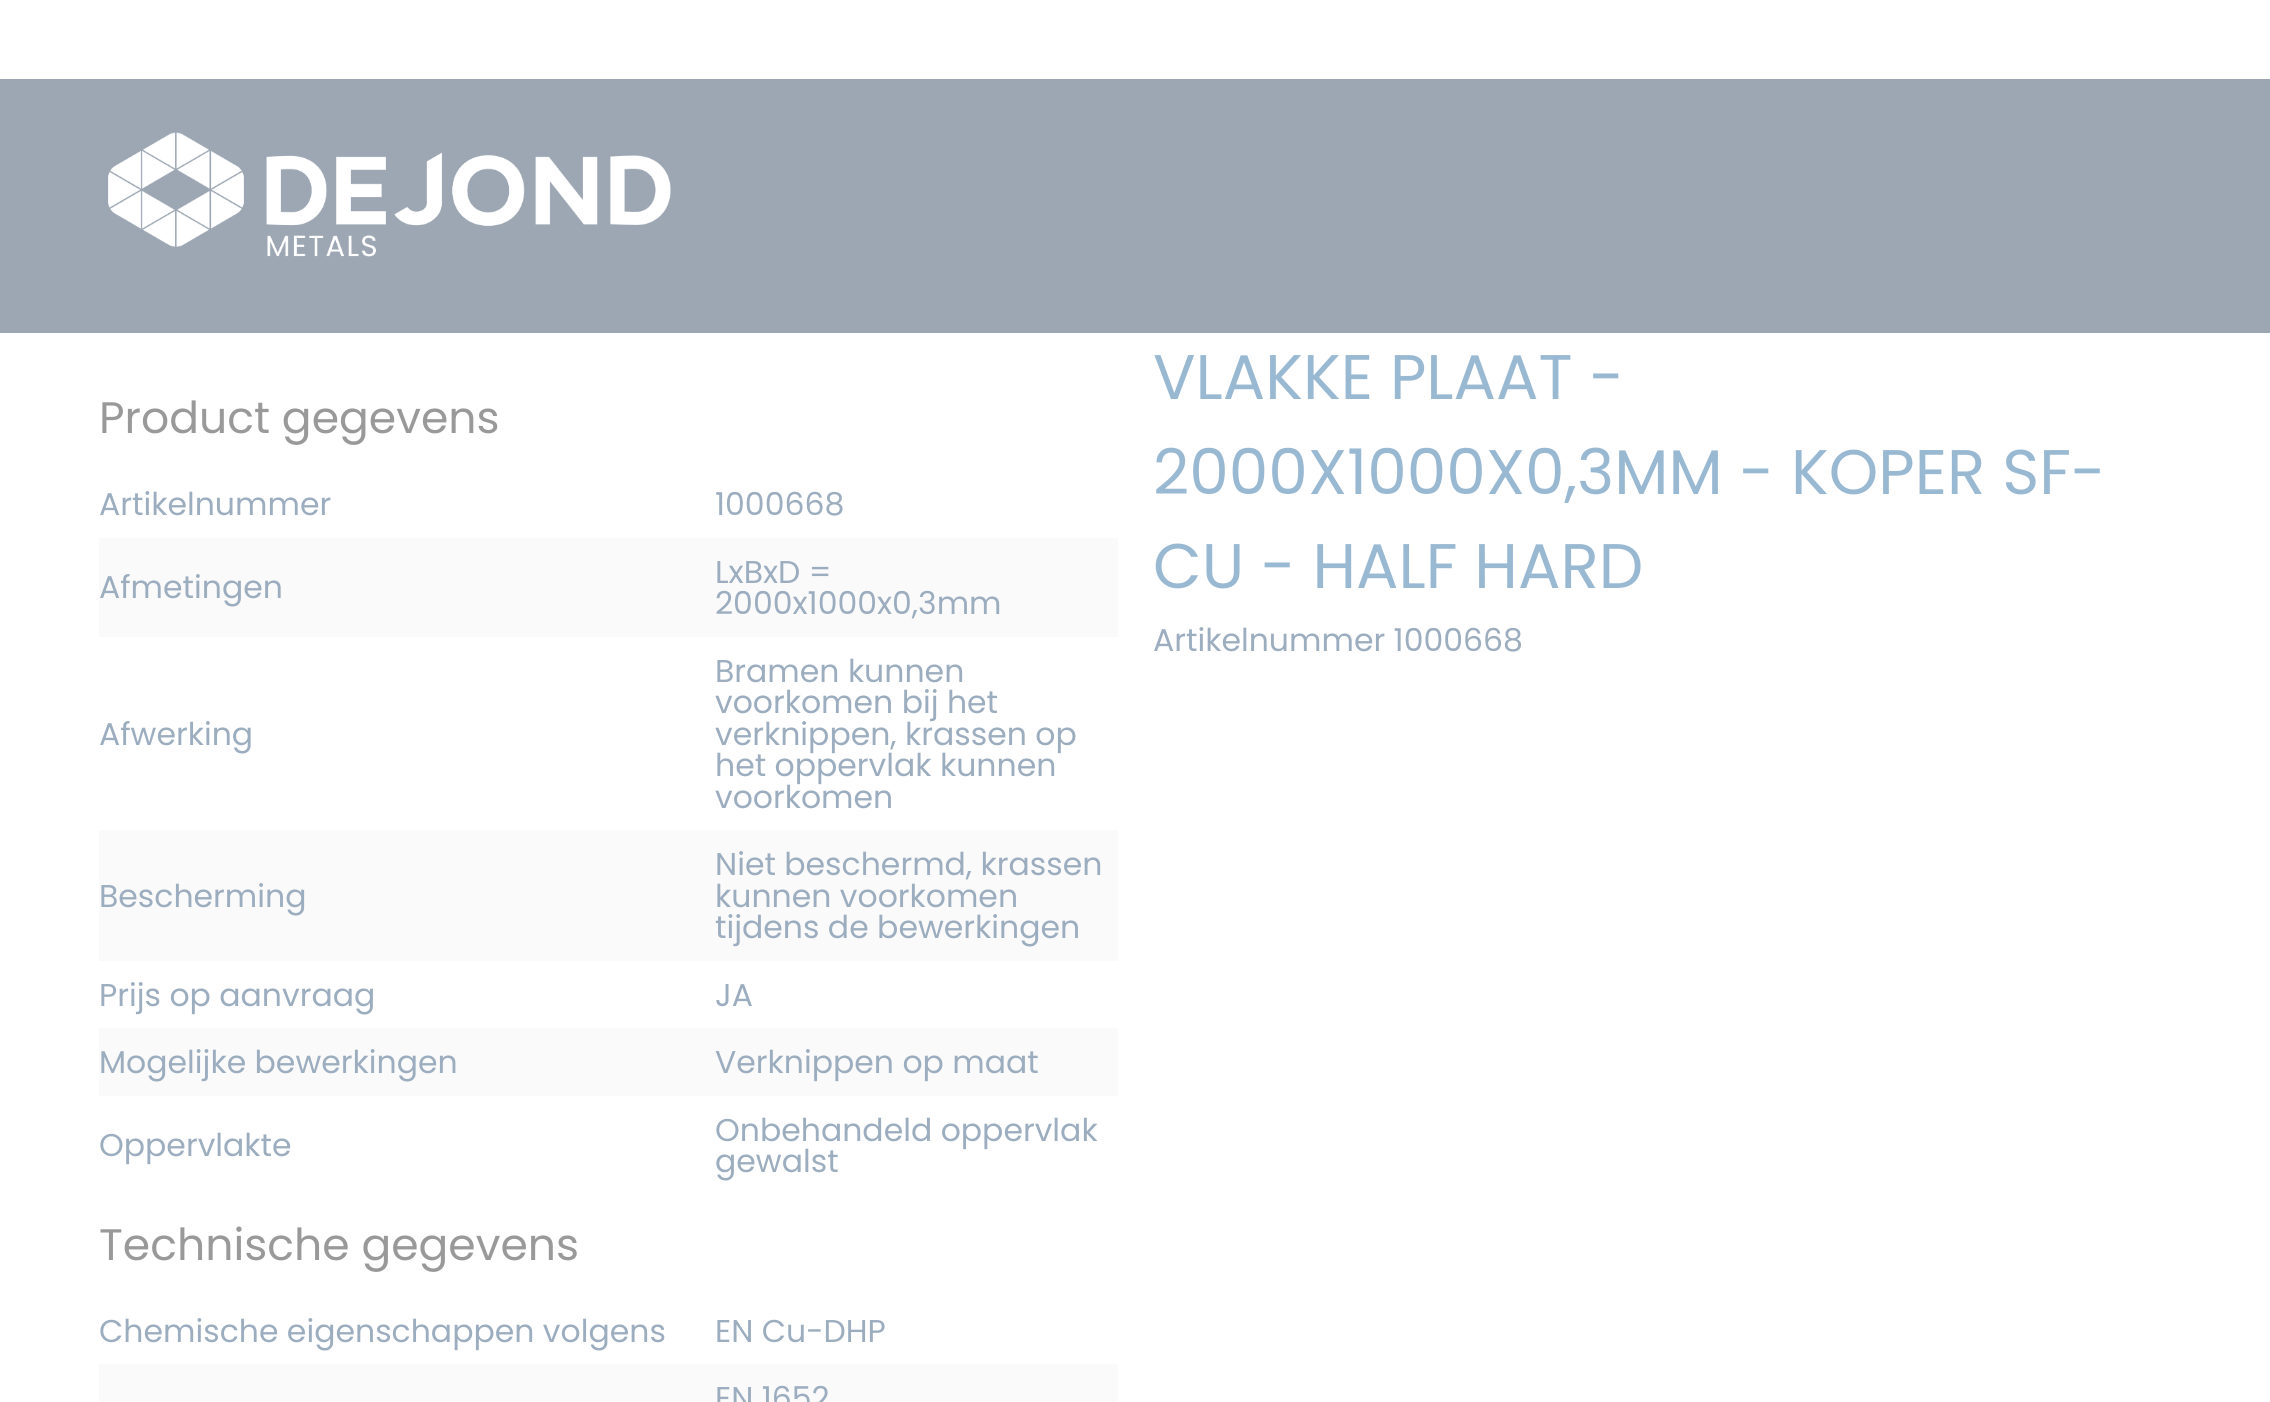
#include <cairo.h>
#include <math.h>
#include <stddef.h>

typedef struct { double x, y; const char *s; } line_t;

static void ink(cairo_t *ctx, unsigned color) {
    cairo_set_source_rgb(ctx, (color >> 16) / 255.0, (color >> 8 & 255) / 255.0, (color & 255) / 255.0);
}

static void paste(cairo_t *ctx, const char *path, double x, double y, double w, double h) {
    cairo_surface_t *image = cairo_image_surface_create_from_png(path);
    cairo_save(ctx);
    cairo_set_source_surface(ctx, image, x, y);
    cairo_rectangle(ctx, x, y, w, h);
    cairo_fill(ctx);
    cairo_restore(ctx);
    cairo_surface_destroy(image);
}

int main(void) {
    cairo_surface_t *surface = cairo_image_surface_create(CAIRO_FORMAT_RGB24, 2270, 1402);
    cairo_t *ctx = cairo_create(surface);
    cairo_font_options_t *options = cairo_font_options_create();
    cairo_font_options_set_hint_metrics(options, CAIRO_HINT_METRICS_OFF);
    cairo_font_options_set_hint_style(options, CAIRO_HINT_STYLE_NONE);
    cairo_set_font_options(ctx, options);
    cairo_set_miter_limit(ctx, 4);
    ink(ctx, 0xFFFFFF);
    cairo_paint(ctx);
    ink(ctx, 0x9DA7B3);
    cairo_rectangle(ctx, 0, 79, 2270, 254);
    cairo_fill(ctx);
    paste(ctx, "media/1.png", 108, 132, 563, 125);
    cairo_select_font_face(ctx, "Poppins", CAIRO_FONT_SLANT_NORMAL, CAIRO_FONT_WEIGHT_NORMAL);
    cairo_set_font_size(ctx, 44.1);
    ink(ctx, 0x999999);
    cairo_move_to(ctx, 99, 433);
    cairo_show_text(ctx, "Product gegevens");
    cairo_set_font_size(ctx, 31.5);
    ink(ctx, 0x9BADBE);
    cairo_move_to(ctx, 99, 515);
    cairo_show_text(ctx, "Artikelnummer");
    cairo_move_to(ctx, 715, 515);
    cairo_show_text(ctx, "1000668");
    ink(ctx, 0xFAFAFA);
    cairo_rectangle(ctx, 99, 538, 1019, 99);
    cairo_fill(ctx);
    ink(ctx, 0x9BADBE);
    {
        static const line_t items[] = {
            {99, 598, "Afmetingen"},
            {715, 583, "LxBxD ="},
            {715, 614, "2000x1000x0,3mm"},
            {99, 745, "Afwerking"},
            {715, 682, "Bramen kunnen"},
            {715, 713, "voorkomen bij het"},
            {715, 745, "verknippen, krassen op"},
            {715, 776, "het oppervlak kunnen"},
            {715, 808, "voorkomen"},
        };
        for (size_t i = 0; i < sizeof items / sizeof *items; i++) {
            cairo_move_to(ctx, items[i].x, items[i].y);
            cairo_show_text(ctx, items[i].s);
        }
    }
    ink(ctx, 0xFAFAFA);
    cairo_rectangle(ctx, 99, 830, 1019, 131);
    cairo_fill(ctx);
    ink(ctx, 0x9BADBE);
    {
        static const line_t items[] = {
            {99, 907, "Bescherming"},
            {715, 875, "Niet beschermd, krassen"},
            {715, 907, "kunnen voorkomen"},
            {715, 938, "tijdens de bewerkingen"},
            {99, 1006, "Prijs op aanvraag"},
            {715, 1006, "JA"},
        };
        for (size_t i = 0; i < sizeof items / sizeof *items; i++) {
            cairo_move_to(ctx, items[i].x, items[i].y);
            cairo_show_text(ctx, items[i].s);
        }
    }
    ink(ctx, 0xFAFAFA);
    cairo_rectangle(ctx, 99, 1028, 1019, 68);
    cairo_fill(ctx);
    ink(ctx, 0x9BADBE);
    {
        static const line_t items[] = {
            {99, 1073, "Mogelijke bewerkingen"},
            {715, 1073, "Verknippen op maat"},
            {99, 1156, "Oppervlakte"},
            {715, 1141, "Onbehandeld oppervlak"},
            {715, 1172, "gewalst"},
        };
        for (size_t i = 0; i < sizeof items / sizeof *items; i++) {
            cairo_move_to(ctx, items[i].x, items[i].y);
            cairo_show_text(ctx, items[i].s);
        }
    }
    cairo_set_font_size(ctx, 44.1);
    ink(ctx, 0x999999);
    cairo_move_to(ctx, 99, 1260);
    cairo_show_text(ctx, "Technische gegevens");
    cairo_set_font_size(ctx, 31.5);
    ink(ctx, 0x9BADBE);
    cairo_move_to(ctx, 99, 1342);
    cairo_show_text(ctx, "Chemische eigenschappen volgens");
    cairo_move_to(ctx, 715, 1342);
    cairo_show_text(ctx, "EN Cu-DHP");
    ink(ctx, 0xFAFAFA);
    cairo_rectangle(ctx, 99, 1364, 1019, 38);
    cairo_fill(ctx);
    ink(ctx, 0x9BADBE);
    cairo_move_to(ctx, 715, 1409);
    cairo_show_text(ctx, "EN 1652");
    cairo_set_font_size(ctx, 63);
    ink(ctx, 0x99B9D3);
    {
        static const line_t items[] = {
            {1153, 399, "VLAKKE PLAAT -"},
            {1153, 494, "2000X1000X0,3MM - KOPER SF-"},
            {1153, 588, "CU - HALF HARD"},
        };
        for (size_t i = 0; i < sizeof items / sizeof *items; i++) {
            cairo_move_to(ctx, items[i].x, items[i].y);
            cairo_show_text(ctx, items[i].s);
        }
    }
    cairo_set_font_size(ctx, 31.5);
    ink(ctx, 0x9BADBE);
    cairo_move_to(ctx, 1153, 651);
    cairo_show_text(ctx, "Artikelnummer 1000668");
    cairo_surface_write_to_png(surface, "image.png");
    cairo_font_options_destroy(options);
    cairo_destroy(ctx);
    cairo_surface_destroy(surface);
    return 0;
}
